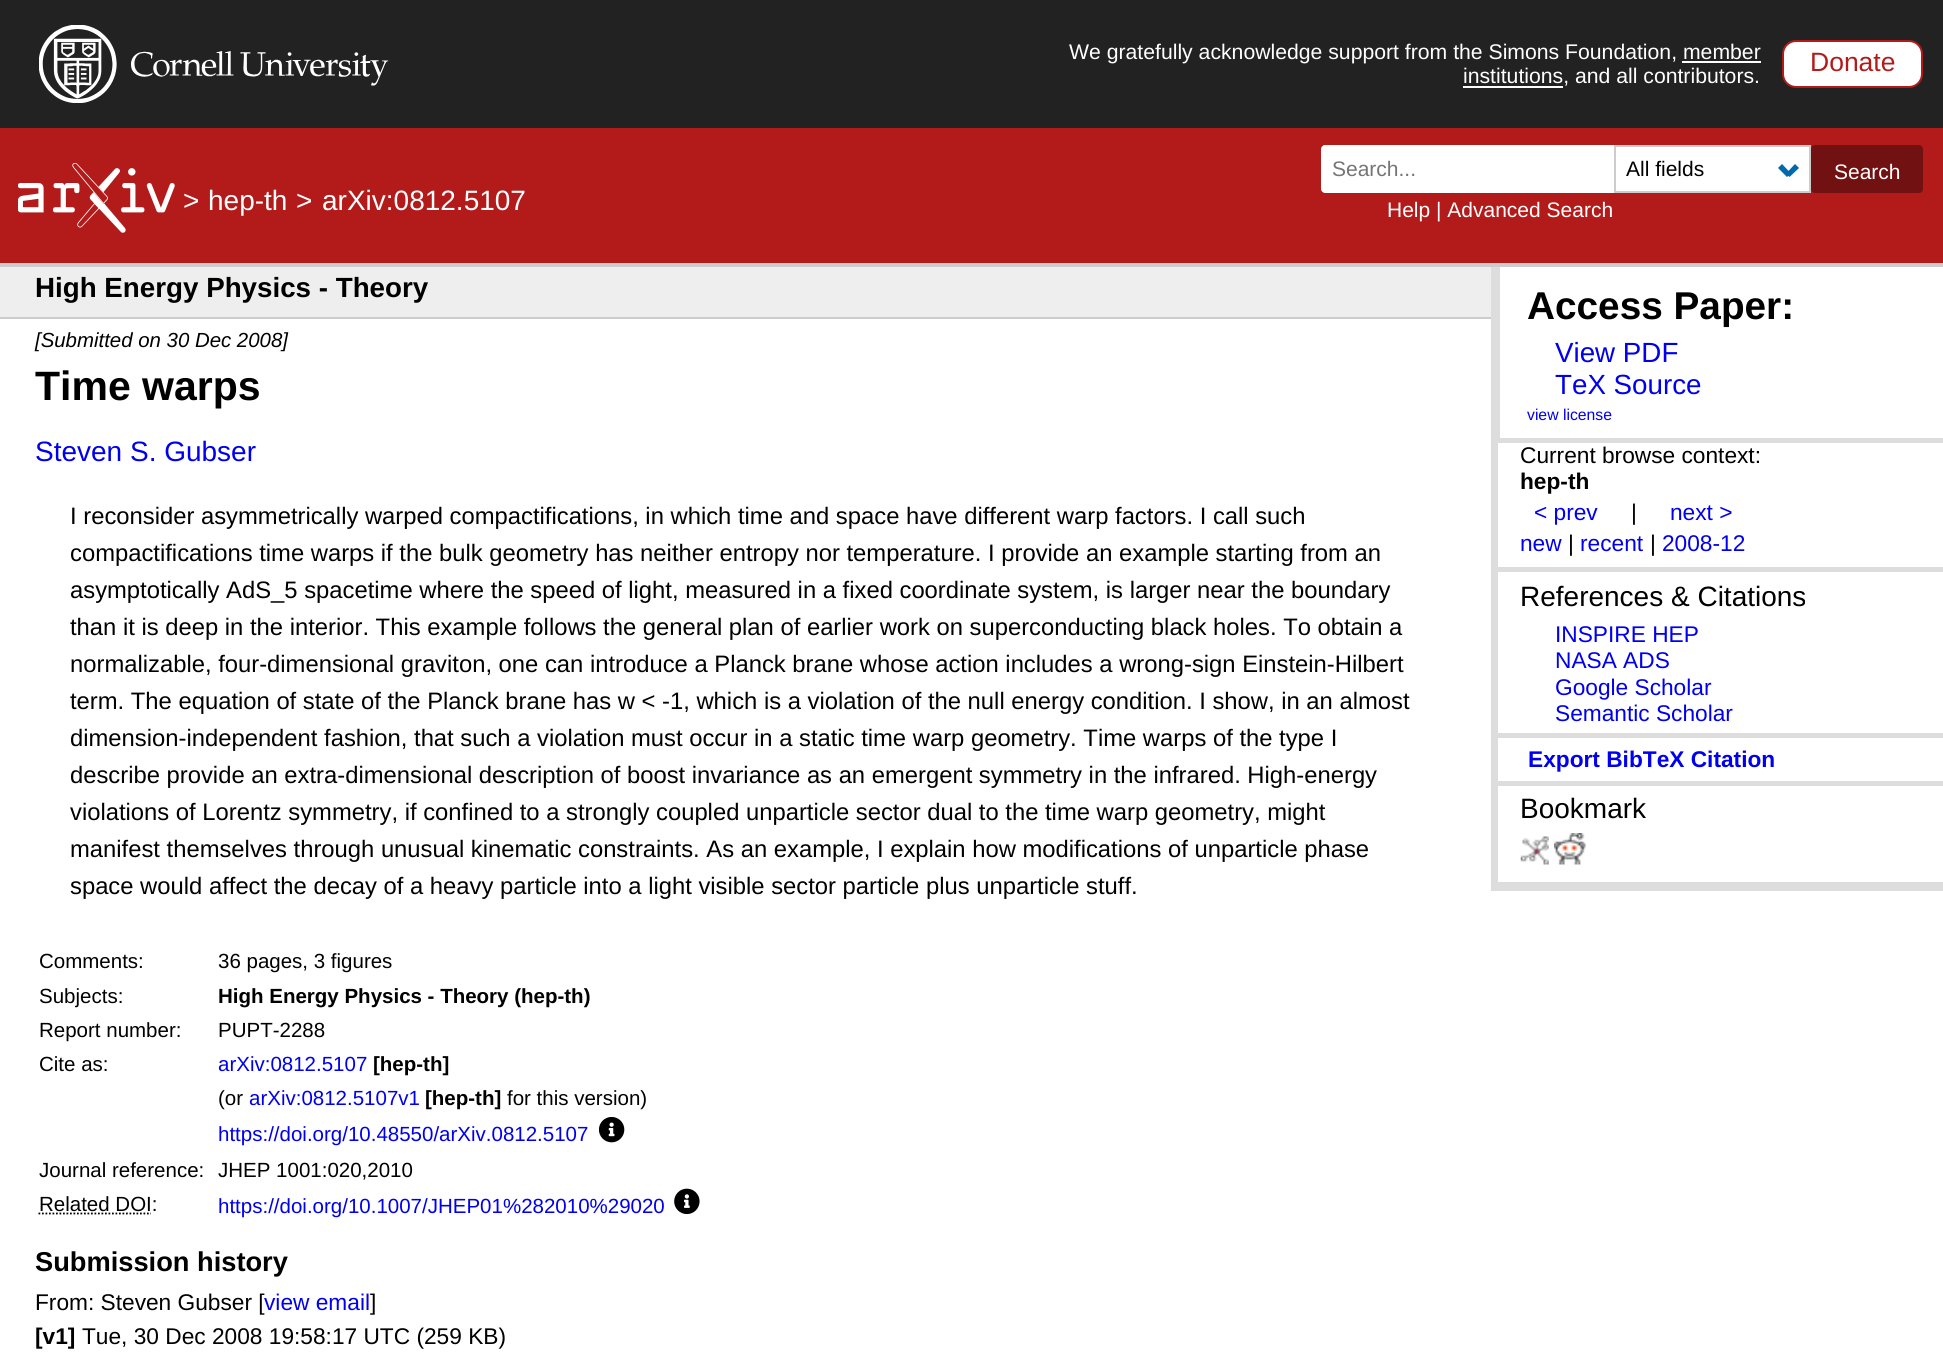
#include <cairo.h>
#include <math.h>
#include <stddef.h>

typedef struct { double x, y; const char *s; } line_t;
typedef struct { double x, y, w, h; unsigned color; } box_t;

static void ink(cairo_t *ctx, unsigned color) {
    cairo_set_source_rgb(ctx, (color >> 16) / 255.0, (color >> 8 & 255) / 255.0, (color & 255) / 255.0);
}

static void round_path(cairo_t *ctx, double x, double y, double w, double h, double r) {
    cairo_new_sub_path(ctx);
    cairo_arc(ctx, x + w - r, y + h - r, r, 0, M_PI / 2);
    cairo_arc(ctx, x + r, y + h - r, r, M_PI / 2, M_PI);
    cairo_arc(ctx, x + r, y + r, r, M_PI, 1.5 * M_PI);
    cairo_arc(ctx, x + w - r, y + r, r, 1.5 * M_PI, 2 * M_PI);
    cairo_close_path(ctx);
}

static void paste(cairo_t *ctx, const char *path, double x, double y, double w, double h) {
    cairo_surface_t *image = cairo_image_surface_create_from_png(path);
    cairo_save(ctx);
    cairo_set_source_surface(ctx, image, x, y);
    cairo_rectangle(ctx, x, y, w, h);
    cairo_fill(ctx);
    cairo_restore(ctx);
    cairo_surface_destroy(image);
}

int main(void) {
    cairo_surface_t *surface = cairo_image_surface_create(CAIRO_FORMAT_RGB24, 1943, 1358);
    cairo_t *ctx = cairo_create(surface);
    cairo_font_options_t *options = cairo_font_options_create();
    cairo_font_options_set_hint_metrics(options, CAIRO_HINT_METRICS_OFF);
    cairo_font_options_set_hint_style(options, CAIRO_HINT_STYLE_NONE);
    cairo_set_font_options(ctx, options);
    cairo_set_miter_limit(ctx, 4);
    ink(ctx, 0xFFFFFF);
    cairo_paint(ctx);
    ink(ctx, 0x222222);
    cairo_rectangle(ctx, 0, 0, 1943, 128);
    cairo_fill(ctx);
    paste(ctx, "media/1.png", 39, 25, 350, 78);
    cairo_select_font_face(ctx, "Liberation Sans", CAIRO_FONT_SLANT_NORMAL, CAIRO_FONT_WEIGHT_NORMAL);
    cairo_set_font_size(ctx, 21.2);
    ink(ctx, 0xFFFFFF);
    cairo_move_to(ctx, 1069, 59);
    cairo_show_text(ctx, "We gratefully acknowledge support from the Simons Foundation, member");
    cairo_move_to(ctx, 1463, 83);
    cairo_show_text(ctx, "institutions, and all contributors.");
    cairo_rectangle(ctx, 1682, 61, 79, 2);
    cairo_fill(ctx);
    cairo_rectangle(ctx, 1463, 86, 100, 2);
    cairo_fill(ctx);
    round_path(ctx, 1783, 41, 139, 46, 13);
    cairo_fill_preserve(ctx);
    ink(ctx, 0xB31B1B);
    cairo_stroke(ctx);
    cairo_set_font_size(ctx, 26.5);
    cairo_move_to(ctx, 1810, 71);
    cairo_show_text(ctx, "Donate");
    cairo_rectangle(ctx, 0, 128, 1943, 135);
    cairo_fill(ctx);
    ink(ctx, 0xCCCCCC);
    cairo_rectangle(ctx, 0, 263, 1943, 4);
    cairo_fill(ctx);
    paste(ctx, "media/2.png", 18, 163, 157, 70);
    cairo_set_font_size(ctx, 28);
    ink(ctx, 0xFFFFFF);
    {
        static const line_t items[] = {
            {183, 210, ">"},
            {208, 210, "hep-th"},
            {296, 210, ">"},
            {322, 210, "arXiv:0812.5107"},
        };
        for (size_t i = 0; i < sizeof items / sizeof *items; i++) {
            cairo_move_to(ctx, items[i].x, items[i].y);
            cairo_show_text(ctx, items[i].s);
        }
    }
    cairo_new_path(ctx);
    cairo_move_to(ctx, 1325, 145);
    cairo_line_to(ctx, 1635, 145);
    cairo_line_to(ctx, 1635, 193);
    cairo_line_to(ctx, 1325, 193);
    cairo_curve_to(ctx, 1323, 193, 1321, 191, 1321, 189);
    cairo_line_to(ctx, 1321, 149);
    cairo_curve_to(ctx, 1321, 147, 1323, 145, 1325, 145);
    cairo_close_path(ctx);
    cairo_fill(ctx);
    cairo_set_font_size(ctx, 21);
    ink(ctx, 0x757575);
    cairo_move_to(ctx, 1332, 176);
    cairo_show_text(ctx, "Search...");
    ink(ctx, 0xFFFFFF);
    cairo_move_to(ctx, 1387, 217);
    cairo_show_text(ctx, "Help | Advanced Search");
    cairo_rectangle(ctx, 1635, 147, 174, 44);
    cairo_fill(ctx);
    cairo_rectangle(ctx, 1615, 146, 195, 46);
    ink(ctx, 0xCCCCCC);
    cairo_stroke(ctx);
    ink(ctx, 0x000000);
    cairo_move_to(ctx, 1626, 176);
    cairo_show_text(ctx, "All fields");
    ink(ctx, 0x0068AC);
    cairo_new_path(ctx);
    cairo_move_to(ctx, 1786, 173.5);
    cairo_line_to(ctx, 1795, 164);
    cairo_line_to(ctx, 1799, 168);
    cairo_line_to(ctx, 1789.5, 177);
    cairo_close_path(ctx);
    cairo_fill(ctx);
    cairo_new_path(ctx);
    cairo_move_to(ctx, 1778, 168);
    cairo_line_to(ctx, 1782, 164);
    cairo_line_to(ctx, 1791, 173.5);
    cairo_line_to(ctx, 1787, 177);
    cairo_close_path(ctx);
    cairo_fill(ctx);
    ink(ctx, 0x711111);
    round_path(ctx, 1811, 145, 112, 48, 4);
    cairo_fill(ctx);
    ink(ctx, 0xFFFFFF);
    cairo_move_to(ctx, 1834, 179);
    cairo_show_text(ctx, "Search");
    ink(ctx, 0xEEEEEE);
    cairo_rectangle(ctx, 0, 267, 1491, 50);
    cairo_fill(ctx);
    ink(ctx, 0xCCCCCC);
    cairo_rectangle(ctx, 0, 317, 1491, 2);
    cairo_fill(ctx);
    cairo_select_font_face(ctx, "Liberation Sans", CAIRO_FONT_SLANT_NORMAL, CAIRO_FONT_WEIGHT_BOLD);
    cairo_set_font_size(ctx, 27.75);
    ink(ctx, 0x000000);
    cairo_move_to(ctx, 35, 297);
    cairo_show_text(ctx, "High Energy Physics - Theory");
    cairo_select_font_face(ctx, "Liberation Sans", CAIRO_FONT_SLANT_ITALIC, CAIRO_FONT_WEIGHT_NORMAL);
    cairo_set_font_size(ctx, 20.4);
    cairo_move_to(ctx, 35, 347);
    cairo_show_text(ctx, "[Submitted on 30 Dec 2008]");
    cairo_select_font_face(ctx, "Liberation Sans", CAIRO_FONT_SLANT_NORMAL, CAIRO_FONT_WEIGHT_BOLD);
    cairo_set_font_size(ctx, 41);
    cairo_move_to(ctx, 35, 400);
    cairo_show_text(ctx, "Time warps");
    cairo_select_font_face(ctx, "Liberation Sans", CAIRO_FONT_SLANT_NORMAL, CAIRO_FONT_WEIGHT_NORMAL);
    cairo_set_font_size(ctx, 28);
    ink(ctx, 0x0000EE);
    cairo_move_to(ctx, 35, 461);
    cairo_show_text(ctx, "Steven S. Gubser");
    cairo_set_font_size(ctx, 23.8);
    ink(ctx, 0x000000);
    {
        static const line_t items[] = {
            {70, 524, "I reconsider asymmetrically warped compactifications, in which time and space have different warp factors. I call such"},
            {70, 561, "compactifications time warps if the bulk geometry has neither entropy nor temperature. I provide an example starting from an"},
            {70, 598, "asymptotically AdS_5 spacetime where the speed of light, measured in a fixed coordinate system, is larger near the boundary"},
            {70, 635, "than it is deep in the interior. This example follows the general plan of earlier work on superconducting black holes. To obtain a"},
            {70, 672, "normalizable, four-dimensional graviton, one can introduce a Planck brane whose action includes a wrong-sign Einstein-Hilbert"},
            {70, 709, "term. The equation of state of the Planck brane has w < -1, which is a violation of the null energy condition. I show, in an almost"},
            {70, 746, "dimension-independent fashion, that such a violation must occur in a static time warp geometry. Time warps of the type I"},
            {70, 783, "describe provide an extra-dimensional description of boost invariance as an emergent symmetry in the infrared. High-energy"},
            {70, 820, "violations of Lorentz symmetry, if confined to a strongly coupled unparticle sector dual to the time warp geometry, might"},
            {70, 857, "manifest themselves through unusual kinematic constraints. As an example, I explain how modifications of unparticle phase"},
            {70, 894, "space would affect the decay of a heavy particle into a light visible sector particle plus unparticle stuff."},
        };
        for (size_t i = 0; i < sizeof items / sizeof *items; i++) {
            cairo_move_to(ctx, items[i].x, items[i].y);
            cairo_show_text(ctx, items[i].s);
        }
    }
    cairo_set_font_size(ctx, 20.5);
    {
        static const line_t items[] = {
            {39, 968, "Comments:"},
            {218, 968, "36 pages, 3 figures"},
            {39, 1003, "Subjects:"},
        };
        for (size_t i = 0; i < sizeof items / sizeof *items; i++) {
            cairo_move_to(ctx, items[i].x, items[i].y);
            cairo_show_text(ctx, items[i].s);
        }
    }
    cairo_select_font_face(ctx, "Liberation Sans", CAIRO_FONT_SLANT_NORMAL, CAIRO_FONT_WEIGHT_BOLD);
    cairo_move_to(ctx, 218, 1003);
    cairo_show_text(ctx, "High Energy Physics - Theory (hep-th)");
    cairo_select_font_face(ctx, "Liberation Sans", CAIRO_FONT_SLANT_NORMAL, CAIRO_FONT_WEIGHT_NORMAL);
    {
        static const line_t items[] = {
            {39, 1037, "Report number:"},
            {218, 1037, "PUPT-2288"},
            {39, 1071, "Cite as:"},
        };
        for (size_t i = 0; i < sizeof items / sizeof *items; i++) {
            cairo_move_to(ctx, items[i].x, items[i].y);
            cairo_show_text(ctx, items[i].s);
        }
    }
    ink(ctx, 0x0000EE);
    cairo_move_to(ctx, 218, 1071);
    cairo_show_text(ctx, "arXiv:0812.5107");
    cairo_select_font_face(ctx, "Liberation Sans", CAIRO_FONT_SLANT_NORMAL, CAIRO_FONT_WEIGHT_BOLD);
    ink(ctx, 0x000000);
    cairo_move_to(ctx, 373, 1071);
    cairo_show_text(ctx, "[hep-th]");
    cairo_select_font_face(ctx, "Liberation Sans", CAIRO_FONT_SLANT_NORMAL, CAIRO_FONT_WEIGHT_NORMAL);
    cairo_move_to(ctx, 218, 1105);
    cairo_show_text(ctx, "(or");
    ink(ctx, 0x0000EE);
    cairo_move_to(ctx, 249, 1105);
    cairo_show_text(ctx, "arXiv:0812.5107v1");
    cairo_select_font_face(ctx, "Liberation Sans", CAIRO_FONT_SLANT_NORMAL, CAIRO_FONT_WEIGHT_BOLD);
    ink(ctx, 0x000000);
    cairo_move_to(ctx, 425, 1105);
    cairo_show_text(ctx, "[hep-th]");
    cairo_select_font_face(ctx, "Liberation Sans", CAIRO_FONT_SLANT_NORMAL, CAIRO_FONT_WEIGHT_NORMAL);
    cairo_move_to(ctx, 507, 1105);
    cairo_show_text(ctx, "for this version)");
    ink(ctx, 0x0000EE);
    cairo_move_to(ctx, 218, 1141);
    cairo_show_text(ctx, "https://doi.org/10.48550/arXiv.0812.5107");
    paste(ctx, "media/3.png", 599, 1117, 26, 26);
    ink(ctx, 0x000000);
    {
        static const line_t items[] = {
            {39, 1177, "Journal reference:"},
            {218, 1177, "JHEP 1001:020,2010"},
            {39, 1211, "Related DOI:"},
        };
        for (size_t i = 0; i < sizeof items / sizeof *items; i++) {
            cairo_move_to(ctx, items[i].x, items[i].y);
            cairo_show_text(ctx, items[i].s);
        }
    }
    cairo_new_path(ctx);
    cairo_move_to(ctx, 38.5, 1213.5);
    cairo_line_to(ctx, 151, 1213.5);
    cairo_set_line_width(ctx, 1.8);
    cairo_set_dash(ctx, (double[]){1.75, 1.75}, 2, 0);
    cairo_stroke(ctx);
    ink(ctx, 0x0000EE);
    cairo_move_to(ctx, 218, 1213);
    cairo_show_text(ctx, "https://doi.org/10.1007/JHEP01%282010%29020");
    paste(ctx, "media/4.png", 674, 1188, 26, 27);
    cairo_select_font_face(ctx, "Liberation Sans", CAIRO_FONT_SLANT_NORMAL, CAIRO_FONT_WEIGHT_BOLD);
    cairo_set_font_size(ctx, 27.25);
    ink(ctx, 0x000000);
    cairo_move_to(ctx, 35, 1271);
    cairo_show_text(ctx, "Submission history");
    cairo_select_font_face(ctx, "Liberation Sans", CAIRO_FONT_SLANT_NORMAL, CAIRO_FONT_WEIGHT_NORMAL);
    cairo_set_font_size(ctx, 22.7);
    cairo_move_to(ctx, 35, 1310);
    cairo_show_text(ctx, "From: Steven Gubser [");
    ink(ctx, 0x0000EE);
    cairo_move_to(ctx, 264, 1310);
    cairo_show_text(ctx, "view email");
    ink(ctx, 0x000000);
    cairo_move_to(ctx, 370, 1310);
    cairo_show_text(ctx, "]");
    cairo_select_font_face(ctx, "Liberation Sans", CAIRO_FONT_SLANT_NORMAL, CAIRO_FONT_WEIGHT_BOLD);
    cairo_move_to(ctx, 35, 1344);
    cairo_show_text(ctx, "[v1]");
    cairo_select_font_face(ctx, "Liberation Sans", CAIRO_FONT_SLANT_NORMAL, CAIRO_FONT_WEIGHT_NORMAL);
    cairo_move_to(ctx, 82, 1344);
    cairo_show_text(ctx, "Tue, 30 Dec 2008 19:58:17 UTC (259 KB)");
    {
        static const box_t items[] = {
            {1491, 882, 452, 9, 0xDDDDDD},
            {1500, 438, 443, 5, 0xDDDDDD},
            {1491, 267, 9, 176, 0xDDDDDD},
        };
        for (size_t i = 0; i < sizeof items / sizeof *items; i++) {
            ink(ctx, items[i].color);
            cairo_rectangle(ctx, items[i].x, items[i].y, items[i].w, items[i].h);
            cairo_fill(ctx);
        }
    }
    cairo_select_font_face(ctx, "Liberation Sans", CAIRO_FONT_SLANT_NORMAL, CAIRO_FONT_WEIGHT_BOLD);
    cairo_set_font_size(ctx, 38.75);
    ink(ctx, 0x000000);
    cairo_move_to(ctx, 1527, 319);
    cairo_show_text(ctx, "Access Paper:");
    cairo_select_font_face(ctx, "Liberation Sans", CAIRO_FONT_SLANT_NORMAL, CAIRO_FONT_WEIGHT_NORMAL);
    cairo_set_font_size(ctx, 27.75);
    ink(ctx, 0x0000EE);
    cairo_move_to(ctx, 1555, 362);
    cairo_show_text(ctx, "View PDF");
    cairo_move_to(ctx, 1555, 394);
    cairo_show_text(ctx, "TeX Source");
    cairo_set_font_size(ctx, 15.75);
    cairo_move_to(ctx, 1527, 420);
    cairo_show_text(ctx, "view license");
    ink(ctx, 0xDDDDDD);
    cairo_rectangle(ctx, 1491, 567, 452, 5);
    cairo_fill(ctx);
    cairo_rectangle(ctx, 1491, 443, 7, 129);
    cairo_fill(ctx);
    cairo_set_font_size(ctx, 22.7);
    ink(ctx, 0x000000);
    cairo_move_to(ctx, 1520, 463);
    cairo_show_text(ctx, "Current browse context:");
    cairo_select_font_face(ctx, "Liberation Sans", CAIRO_FONT_SLANT_NORMAL, CAIRO_FONT_WEIGHT_BOLD);
    cairo_move_to(ctx, 1520, 489);
    cairo_show_text(ctx, "hep-th");
    cairo_select_font_face(ctx, "Liberation Sans", CAIRO_FONT_SLANT_NORMAL, CAIRO_FONT_WEIGHT_NORMAL);
    ink(ctx, 0x0000EE);
    cairo_move_to(ctx, 1534, 520);
    cairo_show_text(ctx, "< prev");
    ink(ctx, 0x000000);
    cairo_move_to(ctx, 1631, 520);
    cairo_show_text(ctx, "|");
    ink(ctx, 0x0000EE);
    cairo_move_to(ctx, 1670, 520);
    cairo_show_text(ctx, "next >");
    cairo_move_to(ctx, 1520, 551);
    cairo_show_text(ctx, "new");
    ink(ctx, 0x000000);
    cairo_move_to(ctx, 1568, 551);
    cairo_show_text(ctx, "|");
    ink(ctx, 0x0000EE);
    cairo_move_to(ctx, 1580, 551);
    cairo_show_text(ctx, "recent");
    ink(ctx, 0x000000);
    cairo_move_to(ctx, 1650, 551);
    cairo_show_text(ctx, "|");
    ink(ctx, 0x0000EE);
    cairo_move_to(ctx, 1662, 551);
    cairo_show_text(ctx, "2008-12");
    ink(ctx, 0xDDDDDD);
    cairo_rectangle(ctx, 1491, 733, 452, 5);
    cairo_fill(ctx);
    cairo_rectangle(ctx, 1491, 572, 7, 167);
    cairo_fill(ctx);
    cairo_set_font_size(ctx, 28);
    ink(ctx, 0x000000);
    cairo_move_to(ctx, 1520, 606);
    cairo_show_text(ctx, "References & Citations");
    cairo_set_font_size(ctx, 22.7);
    ink(ctx, 0x0000EE);
    {
        static const line_t items[] = {
            {1555, 642, "INSPIRE HEP"},
            {1555, 668, "NASA ADS"},
            {1555, 695, "Google Scholar"},
            {1555, 721, "Semantic Scholar"},
        };
        for (size_t i = 0; i < sizeof items / sizeof *items; i++) {
            cairo_move_to(ctx, items[i].x, items[i].y);
            cairo_show_text(ctx, items[i].s);
        }
    }
    ink(ctx, 0xDDDDDD);
    cairo_rectangle(ctx, 1491, 781, 452, 5);
    cairo_fill(ctx);
    cairo_rectangle(ctx, 1491, 739, 7, 143);
    cairo_fill(ctx);
    cairo_select_font_face(ctx, "Liberation Sans", CAIRO_FONT_SLANT_NORMAL, CAIRO_FONT_WEIGHT_BOLD);
    ink(ctx, 0x0000EE);
    cairo_move_to(ctx, 1528, 767);
    cairo_show_text(ctx, "Export BibTeX Citation");
    cairo_select_font_face(ctx, "Liberation Sans", CAIRO_FONT_SLANT_NORMAL, CAIRO_FONT_WEIGHT_NORMAL);
    cairo_set_font_size(ctx, 28);
    ink(ctx, 0x000000);
    cairo_move_to(ctx, 1520, 818);
    cairo_show_text(ctx, "Bookmark");
    paste(ctx, "media/5.png", 1520, 836, 29, 29);
    paste(ctx, "media/6.png", 1554, 833, 32, 32);
    cairo_surface_write_to_png(surface, "image.png");
    cairo_font_options_destroy(options);
    cairo_destroy(ctx);
    cairo_surface_destroy(surface);
    return 0;
}
